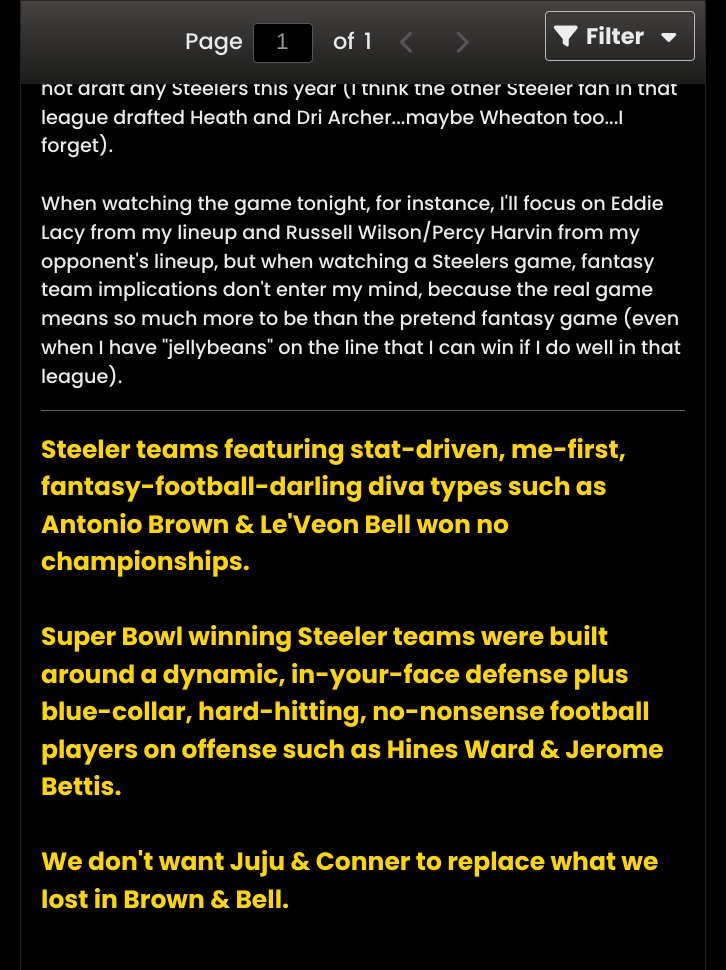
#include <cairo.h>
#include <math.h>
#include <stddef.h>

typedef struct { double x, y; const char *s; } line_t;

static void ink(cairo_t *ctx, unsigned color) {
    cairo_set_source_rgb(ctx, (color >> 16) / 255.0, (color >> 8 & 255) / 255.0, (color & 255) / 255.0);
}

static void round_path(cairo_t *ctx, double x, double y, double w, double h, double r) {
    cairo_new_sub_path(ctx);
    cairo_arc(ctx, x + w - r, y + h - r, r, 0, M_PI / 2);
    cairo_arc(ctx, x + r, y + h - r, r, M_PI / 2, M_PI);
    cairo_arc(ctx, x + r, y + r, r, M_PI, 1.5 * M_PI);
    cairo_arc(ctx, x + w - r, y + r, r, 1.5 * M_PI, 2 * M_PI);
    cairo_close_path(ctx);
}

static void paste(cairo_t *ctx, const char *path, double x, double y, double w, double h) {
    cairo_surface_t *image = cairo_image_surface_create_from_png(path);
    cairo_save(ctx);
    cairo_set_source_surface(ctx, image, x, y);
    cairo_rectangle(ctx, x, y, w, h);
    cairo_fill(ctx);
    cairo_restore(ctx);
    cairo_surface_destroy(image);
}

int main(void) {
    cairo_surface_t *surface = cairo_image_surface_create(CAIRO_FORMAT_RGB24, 726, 970);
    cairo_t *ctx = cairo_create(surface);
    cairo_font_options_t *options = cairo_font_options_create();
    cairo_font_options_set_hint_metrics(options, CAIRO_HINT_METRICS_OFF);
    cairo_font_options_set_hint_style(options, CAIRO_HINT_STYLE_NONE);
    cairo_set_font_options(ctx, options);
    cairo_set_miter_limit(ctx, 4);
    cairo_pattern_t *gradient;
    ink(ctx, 0x000000);
    cairo_paint(ctx);
    cairo_rectangle(ctx, 20.5, -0.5, 685, 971);
    ink(ctx, 0x222222);
    cairo_set_line_width(ctx, 1);
    cairo_stroke(ctx);
    cairo_select_font_face(ctx, "Poppins Medium", CAIRO_FONT_SLANT_NORMAL, CAIRO_FONT_WEIGHT_NORMAL);
    cairo_set_font_size(ctx, 19.2);
    ink(ctx, 0xEBEBEB);
    cairo_move_to(ctx, 41, 95);
    cairo_show_text(ctx, "not draft any Steelers this year (I think the other Steeler fan in that");
    gradient = cairo_pattern_create_linear(363, 1.2, 363, 83);
    cairo_pattern_add_color_stop_rgba(gradient, 0, 0.271, 0.259, 0.251, 1);
    cairo_pattern_add_color_stop_rgba(gradient, 1, 0.11, 0.11, 0.106, 1);
    cairo_set_source(ctx, gradient);
    cairo_pattern_destroy(gradient);
    cairo_rectangle(ctx, 21, 1, 684, 82);
    cairo_fill(ctx);
    cairo_rectangle(ctx, 20.5, 0.5, 685, 83);
    ink(ctx, 0x222222);
    cairo_stroke(ctx);
    cairo_set_font_size(ctx, 22.5);
    ink(ctx, 0xEBEBEB);
    cairo_move_to(ctx, 185, 49);
    cairo_show_text(ctx, "Page");
    ink(ctx, 0x000000);
    round_path(ctx, 253.5, 23.5, 59, 39, 3.5);
    cairo_fill_preserve(ctx);
    ink(ctx, 0x575555);
    cairo_stroke(ctx);
    cairo_select_font_face(ctx, "Liberation Sans", CAIRO_FONT_SLANT_NORMAL, CAIRO_FONT_WEIGHT_NORMAL);
    ink(ctx, 0x9A9999);
    cairo_move_to(ctx, 276, 49);
    cairo_show_text(ctx, "1");
    cairo_select_font_face(ctx, "Poppins Medium", CAIRO_FONT_SLANT_NORMAL, CAIRO_FONT_WEIGHT_NORMAL);
    ink(ctx, 0xEBEBEB);
    cairo_move_to(ctx, 333, 49);
    cairo_show_text(ctx, "of");
    cairo_move_to(ctx, 364, 49);
    cairo_show_text(ctx, "1");
    paste(ctx, "media/1.png", 400, 31, 12, 22);
    paste(ctx, "media/2.png", 456, 31, 13, 22);
    round_path(ctx, 545.5, 11.5, 149, 49, 3.5);
    ink(ctx, 0xB7B7B7);
    cairo_stroke(ctx);
    paste(ctx, "media/3.png", 553, 25, 25, 22);
    cairo_select_font_face(ctx, "Poppins", CAIRO_FONT_SLANT_NORMAL, CAIRO_FONT_WEIGHT_BOLD);
    ink(ctx, 0xEBEBEB);
    cairo_move_to(ctx, 586, 44);
    cairo_show_text(ctx, "Filter");
    paste(ctx, "media/4.png", 661, 33, 16, 9);
    cairo_select_font_face(ctx, "Poppins Medium", CAIRO_FONT_SLANT_NORMAL, CAIRO_FONT_WEIGHT_NORMAL);
    cairo_set_font_size(ctx, 19.2);
    {
        static const line_t items[] = {
            {41, 124, "league drafted Heath and Dri Archer...maybe Wheaton too...I"},
            {41, 152, "forget)."},
            {41, 210, "When watching the game tonight, for instance, I'll focus on Eddie"},
            {41, 239, "Lacy from my lineup and Russell Wilson/Percy Harvin from my"},
            {41, 268, "opponent's lineup, but when watching a Steelers game, fantasy"},
            {41, 296, "team implications don't enter my mind, because the real game"},
            {41, 325, "means so much more to be than the pretend fantasy game (even"},
            {41, 354, "when I have \"jellybeans\" on the line that I can win if I do well in that"},
            {41, 383, "league)."},
        };
        for (size_t i = 0; i < sizeof items / sizeof *items; i++) {
            cairo_move_to(ctx, items[i].x, items[i].y);
            cairo_show_text(ctx, items[i].s);
        }
    }
    ink(ctx, 0x635E5C);
    cairo_rectangle(ctx, 41, 410, 644, 1);
    cairo_fill(ctx);
    cairo_select_font_face(ctx, "Poppins", CAIRO_FONT_SLANT_NORMAL, CAIRO_FONT_WEIGHT_BOLD);
    cairo_set_font_size(ctx, 25);
    ink(ctx, 0xFFD700);
    {
        static const line_t items[] = {
            {41, 458, "Steeler teams featuring stat-driven, me-first,"},
            {41, 495, "fantasy-football-darling diva types such as"},
            {41, 533, "Antonio Brown & Le'Veon Bell won no"},
            {41, 570, "championships."},
            {41, 645, "Super Bowl winning Steeler teams were built"},
            {41, 683, "around a dynamic, in-your-face defense plus"},
            {41, 720, "blue-collar, hard-hitting, no-nonsense football"},
            {41, 758, "players on offense such as Hines Ward & Jerome"},
            {41, 795, "Bettis."},
            {41, 870, "We don't want Juju & Conner to replace what we"},
            {41, 908, "lost in Brown & Bell."},
        };
        for (size_t i = 0; i < sizeof items / sizeof *items; i++) {
            cairo_move_to(ctx, items[i].x, items[i].y);
            cairo_show_text(ctx, items[i].s);
        }
    }
    cairo_surface_write_to_png(surface, "image.png");
    cairo_font_options_destroy(options);
    cairo_destroy(ctx);
    cairo_surface_destroy(surface);
    return 0;
}
